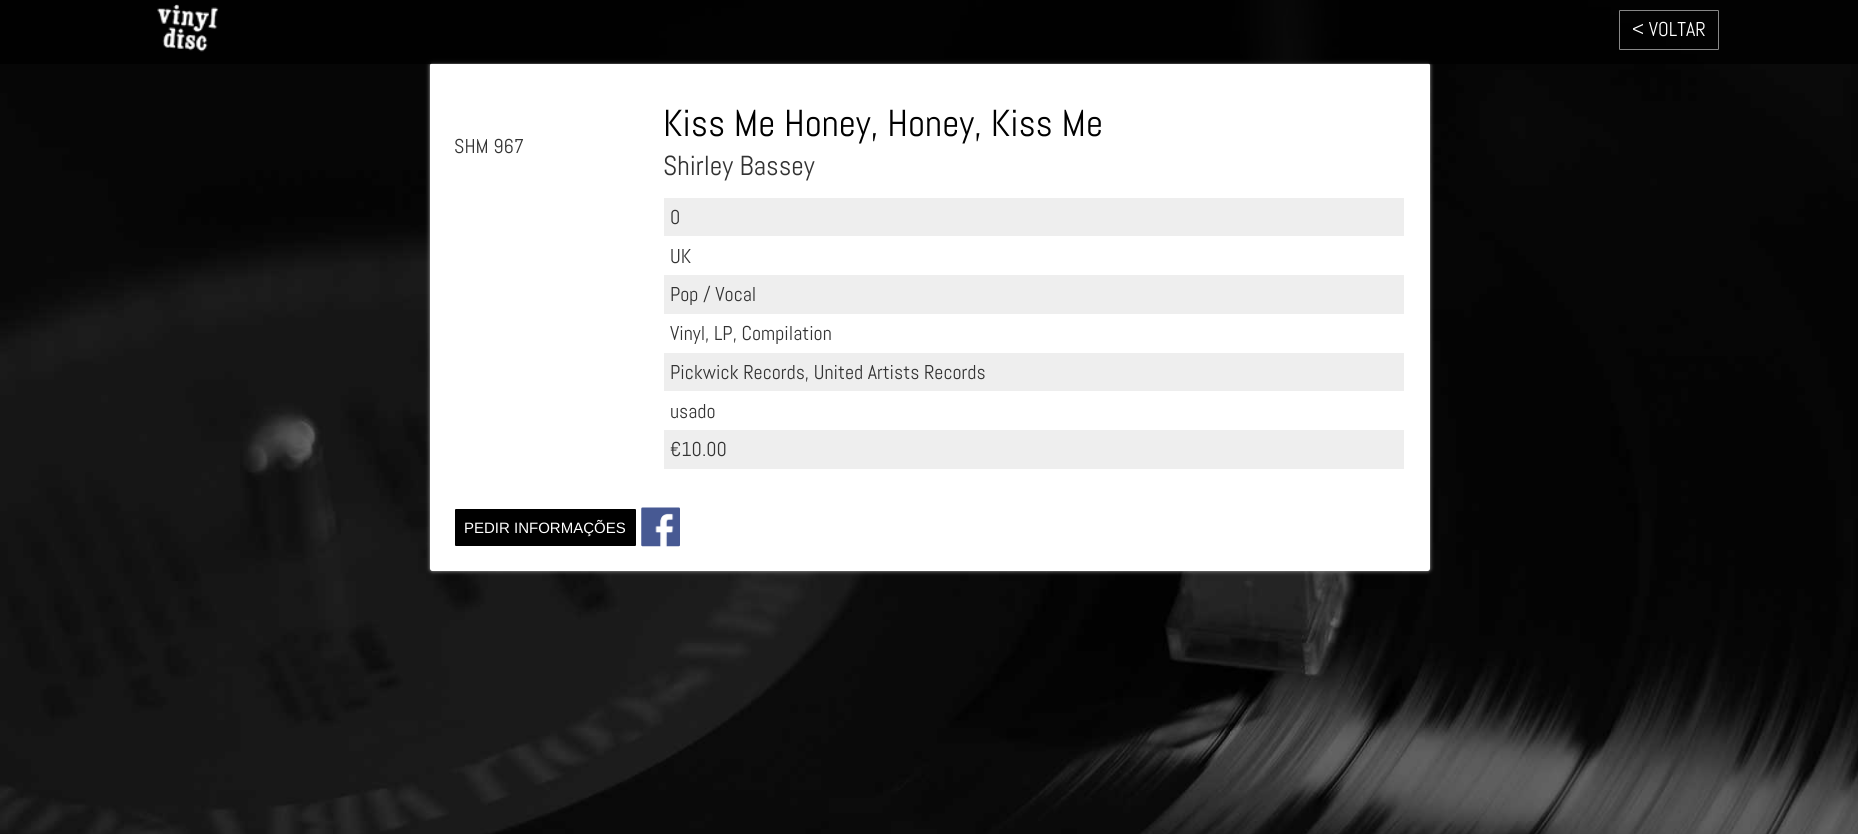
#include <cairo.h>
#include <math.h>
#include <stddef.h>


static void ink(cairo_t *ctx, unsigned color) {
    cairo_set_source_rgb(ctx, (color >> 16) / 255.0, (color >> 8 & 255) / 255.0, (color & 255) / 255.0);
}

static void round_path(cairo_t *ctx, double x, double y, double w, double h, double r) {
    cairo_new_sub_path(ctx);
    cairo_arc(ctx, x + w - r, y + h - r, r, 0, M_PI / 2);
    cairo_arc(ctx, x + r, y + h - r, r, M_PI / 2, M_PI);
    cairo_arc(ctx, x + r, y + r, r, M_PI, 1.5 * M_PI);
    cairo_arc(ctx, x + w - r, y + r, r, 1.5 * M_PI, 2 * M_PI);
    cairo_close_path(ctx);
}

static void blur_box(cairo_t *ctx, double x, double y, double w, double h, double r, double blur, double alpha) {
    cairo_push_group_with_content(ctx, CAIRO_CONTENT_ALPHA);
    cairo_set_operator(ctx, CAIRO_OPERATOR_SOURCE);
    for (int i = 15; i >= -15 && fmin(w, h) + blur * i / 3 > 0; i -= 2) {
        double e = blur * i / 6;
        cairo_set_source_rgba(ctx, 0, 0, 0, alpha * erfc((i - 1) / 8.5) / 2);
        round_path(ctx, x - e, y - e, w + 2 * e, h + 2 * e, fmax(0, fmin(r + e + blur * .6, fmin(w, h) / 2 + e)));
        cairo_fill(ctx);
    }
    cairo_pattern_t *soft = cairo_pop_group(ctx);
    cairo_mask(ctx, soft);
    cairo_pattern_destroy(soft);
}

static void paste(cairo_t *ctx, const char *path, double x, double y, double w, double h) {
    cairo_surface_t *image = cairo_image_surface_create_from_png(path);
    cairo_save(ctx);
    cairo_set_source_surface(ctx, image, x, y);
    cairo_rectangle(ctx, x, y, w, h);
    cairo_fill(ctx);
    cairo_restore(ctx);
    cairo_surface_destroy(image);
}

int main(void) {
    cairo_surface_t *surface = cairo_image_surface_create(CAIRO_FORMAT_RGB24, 1858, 834);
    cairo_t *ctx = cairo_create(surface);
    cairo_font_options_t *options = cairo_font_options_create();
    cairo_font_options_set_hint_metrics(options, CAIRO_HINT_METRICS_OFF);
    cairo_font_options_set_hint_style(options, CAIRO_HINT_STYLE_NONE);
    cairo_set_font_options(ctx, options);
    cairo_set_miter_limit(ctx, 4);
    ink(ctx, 0xFFFFFF);
    cairo_paint(ctx);
    paste(ctx, "media/1.png", 0, 0, 1858, 834);
    ink(ctx, 0xAAAAAA);
    blur_box(ctx, 430, 63, 1000, 508, 2.5, 2, 1);
    ink(ctx, 0xFFFFFF);
    round_path(ctx, 430, 63, 1000, 508, 2.5);
    cairo_fill(ctx);
    cairo_set_source_rgba(ctx, 0, 0, 0, 0.8);
    cairo_rectangle(ctx, 0, 0, 1858, 64);
    cairo_fill(ctx);
    paste(ctx, "media/2.png", 157, 4, 62, 48);
    round_path(ctx, 1619.5, 10.5, 99, 39, 0.5);
    ink(ctx, 0x888888);
    cairo_set_line_width(ctx, 1);
    cairo_stroke(ctx);
    cairo_select_font_face(ctx, "Abel", CAIRO_FONT_SLANT_NORMAL, CAIRO_FONT_WEIGHT_NORMAL);
    cairo_set_font_size(ctx, 20);
    ink(ctx, 0xFFFFFF);
    cairo_move_to(ctx, 1632, 36);
    cairo_show_text(ctx, "< VOLTAR");
    ink(ctx, 0x333333);
    cairo_move_to(ctx, 454, 153);
    cairo_show_text(ctx, "SHM 967");
    cairo_set_font_size(ctx, 37.5);
    ink(ctx, 0x000000);
    cairo_move_to(ctx, 663, 136);
    cairo_show_text(ctx, "Kiss Me Honey, Honey, Kiss Me");
    cairo_set_font_size(ctx, 27.5);
    ink(ctx, 0x333333);
    cairo_move_to(ctx, 663, 175);
    cairo_show_text(ctx, "Shirley Bassey");
    ink(ctx, 0xEEEEEE);
    cairo_rectangle(ctx, 664, 198, 740, 38);
    cairo_fill(ctx);
    cairo_set_font_size(ctx, 20);
    ink(ctx, 0x333333);
    cairo_move_to(ctx, 670, 224);
    cairo_show_text(ctx, "0");
    cairo_move_to(ctx, 670, 263);
    cairo_show_text(ctx, "UK");
    ink(ctx, 0xEEEEEE);
    cairo_rectangle(ctx, 664, 275, 740, 39);
    cairo_fill(ctx);
    ink(ctx, 0x333333);
    cairo_move_to(ctx, 670, 301);
    cairo_show_text(ctx, "Pop / Vocal");
    cairo_move_to(ctx, 670, 340);
    cairo_show_text(ctx, "Vinyl, LP, Compilation");
    ink(ctx, 0xEEEEEE);
    cairo_rectangle(ctx, 664, 353, 740, 38);
    cairo_fill(ctx);
    ink(ctx, 0x333333);
    cairo_move_to(ctx, 670, 379);
    cairo_show_text(ctx, "Pickwick Records, United Artists Records");
    cairo_move_to(ctx, 670, 418);
    cairo_show_text(ctx, "usado");
    ink(ctx, 0xEEEEEE);
    cairo_rectangle(ctx, 664, 430, 740, 39);
    cairo_fill(ctx);
    ink(ctx, 0x333333);
    cairo_move_to(ctx, 670, 456);
    cairo_show_text(ctx, "€10.00");
    ink(ctx, 0x000000);
    round_path(ctx, 455.5, 509.5, 180, 36, 0.5);
    cairo_fill_preserve(ctx);
    cairo_stroke(ctx);
    cairo_select_font_face(ctx, "Liberation Sans", CAIRO_FONT_SLANT_NORMAL, CAIRO_FONT_WEIGHT_NORMAL);
    cairo_set_font_size(ctx, 15);
    ink(ctx, 0xFFFFFF);
    cairo_move_to(ctx, 464, 533);
    cairo_show_text(ctx, "PEDIR INFORMAÇÕES");
    paste(ctx, "media/3.png", 641, 507, 39, 40);
    cairo_surface_write_to_png(surface, "image.png");
    cairo_font_options_destroy(options);
    cairo_destroy(ctx);
    cairo_surface_destroy(surface);
    return 0;
}
